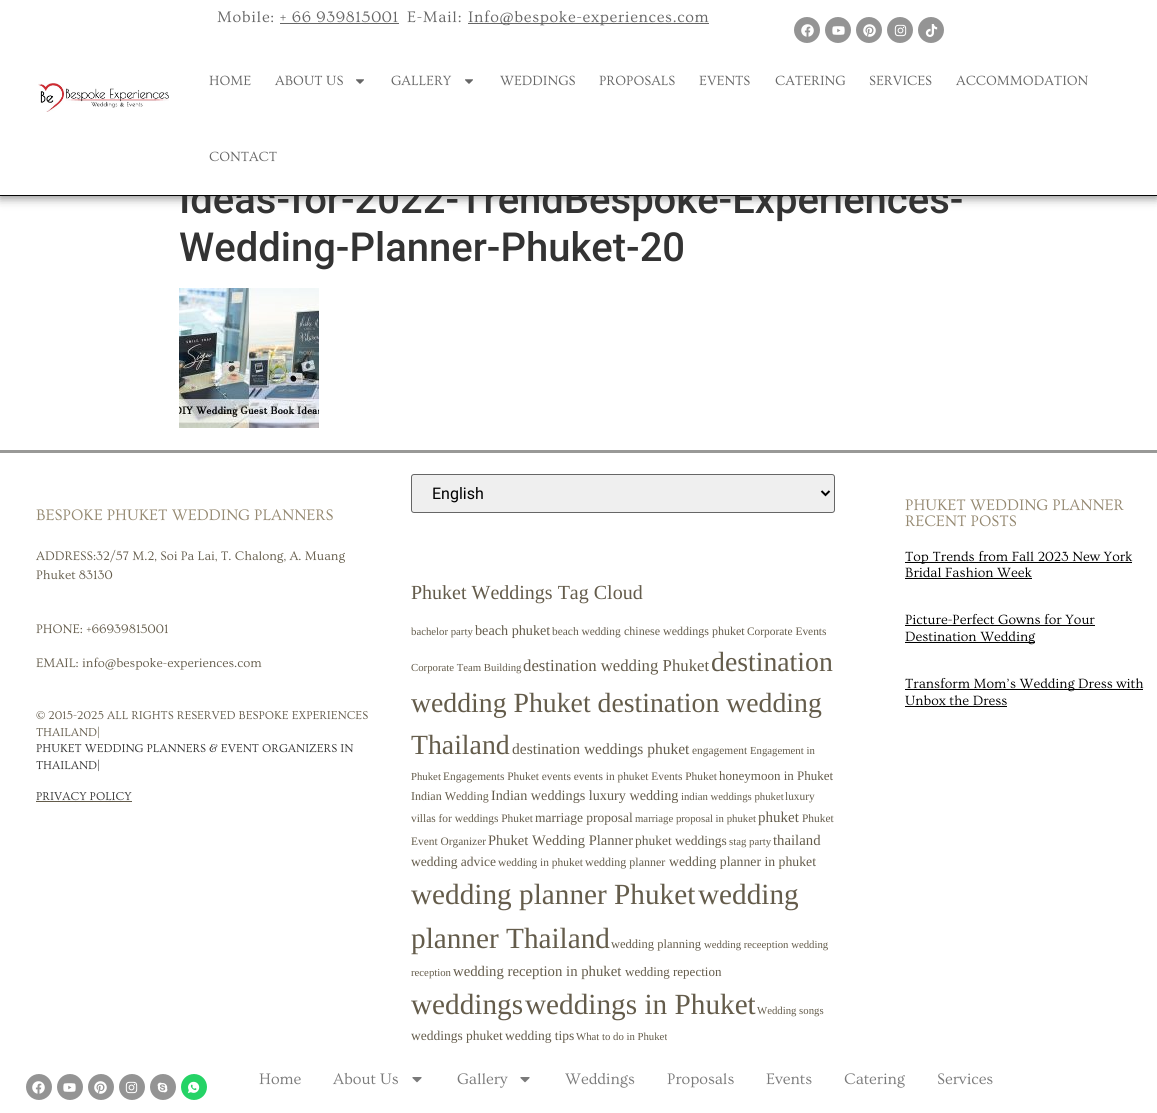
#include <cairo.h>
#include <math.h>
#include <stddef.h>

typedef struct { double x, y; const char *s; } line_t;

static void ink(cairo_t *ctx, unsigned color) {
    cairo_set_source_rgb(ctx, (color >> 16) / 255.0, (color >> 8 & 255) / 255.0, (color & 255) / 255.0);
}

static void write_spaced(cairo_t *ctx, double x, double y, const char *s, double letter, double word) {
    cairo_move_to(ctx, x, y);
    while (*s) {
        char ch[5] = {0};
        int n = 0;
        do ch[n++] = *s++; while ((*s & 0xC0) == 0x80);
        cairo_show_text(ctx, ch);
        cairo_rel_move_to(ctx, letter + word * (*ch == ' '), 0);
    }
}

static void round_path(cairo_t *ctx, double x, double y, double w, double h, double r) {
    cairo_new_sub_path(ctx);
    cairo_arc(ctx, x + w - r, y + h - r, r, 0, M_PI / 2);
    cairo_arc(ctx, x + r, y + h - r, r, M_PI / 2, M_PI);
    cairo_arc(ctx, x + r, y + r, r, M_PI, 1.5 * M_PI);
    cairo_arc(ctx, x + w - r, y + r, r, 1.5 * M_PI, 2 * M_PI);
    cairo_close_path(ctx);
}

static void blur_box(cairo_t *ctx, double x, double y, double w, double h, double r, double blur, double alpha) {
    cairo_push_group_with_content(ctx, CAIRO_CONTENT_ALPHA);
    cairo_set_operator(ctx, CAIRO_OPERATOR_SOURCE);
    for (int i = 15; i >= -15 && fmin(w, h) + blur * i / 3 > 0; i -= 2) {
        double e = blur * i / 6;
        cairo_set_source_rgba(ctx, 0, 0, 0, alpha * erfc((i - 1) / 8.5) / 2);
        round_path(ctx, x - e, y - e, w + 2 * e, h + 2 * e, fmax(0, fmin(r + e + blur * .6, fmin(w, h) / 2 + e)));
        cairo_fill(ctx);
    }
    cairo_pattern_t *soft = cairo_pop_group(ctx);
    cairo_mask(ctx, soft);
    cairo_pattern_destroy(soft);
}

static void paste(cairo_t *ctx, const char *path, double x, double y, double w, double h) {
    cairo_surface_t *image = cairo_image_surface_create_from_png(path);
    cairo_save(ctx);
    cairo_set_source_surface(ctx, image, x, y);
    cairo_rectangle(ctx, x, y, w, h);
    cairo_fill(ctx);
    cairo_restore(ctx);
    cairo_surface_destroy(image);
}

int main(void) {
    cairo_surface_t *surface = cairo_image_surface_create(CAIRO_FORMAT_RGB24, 1157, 1113);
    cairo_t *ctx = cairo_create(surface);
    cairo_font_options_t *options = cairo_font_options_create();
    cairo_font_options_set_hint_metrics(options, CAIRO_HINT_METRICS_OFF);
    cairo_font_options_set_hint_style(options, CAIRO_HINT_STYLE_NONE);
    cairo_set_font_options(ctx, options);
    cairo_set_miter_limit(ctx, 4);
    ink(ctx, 0xFFFFFF);
    cairo_paint(ctx);
    ink(ctx, 0x141414);
    blur_box(ctx, 0, 2, 1157, 196, 0, 5, 0.5);
    cairo_select_font_face(ctx, "Roboto Medium", CAIRO_FONT_SLANT_NORMAL, CAIRO_FONT_WEIGHT_NORMAL);
    cairo_set_font_size(ctx, 40);
    ink(ctx, 0x333333);
    cairo_move_to(ctx, 179, 213);
    cairo_show_text(ctx, "Ideas-for-2022-TrendBespoke-Experiences-");
    ink(ctx, 0xFFFFFF);
    cairo_rectangle(ctx, 0, 0, 1157, 195);
    cairo_fill(ctx);
    ink(ctx, 0x050505);
    cairo_rectangle(ctx, 0, 195, 1157, 1);
    cairo_fill(ctx);
    paste(ctx, "media/1.png", 38, 83, 131, 29);
    cairo_select_font_face(ctx, "Ovo", CAIRO_FONT_SLANT_NORMAL, CAIRO_FONT_WEIGHT_NORMAL);
    cairo_set_font_size(ctx, 16);
    ink(ctx, 0x666666);
    write_spaced(ctx, 217, 22, "Mobile: + 66 939815001", 0.7, 0);
    cairo_rectangle(ctx, 280, 23, 119, 1);
    cairo_fill(ctx);
    write_spaced(ctx, 407, 22, "E-Mail:", 0.7, 0);
    cairo_rectangle(ctx, 468, 23, 241, 1);
    cairo_fill(ctx);
    write_spaced(ctx, 468, 22, "Info@bespoke-experiences.com", 0.7, 0);
    ink(ctx, 0x949494);
    cairo_new_path(ctx);
    cairo_arc(ctx, 807, 30, 13, 0, 2 * M_PI);
    cairo_fill(ctx);
    paste(ctx, "media/2.png", 801, 24, 13, 13);
    cairo_arc(ctx, 838, 30, 13, 0, 2 * M_PI);
    cairo_fill(ctx);
    paste(ctx, "media/3.png", 832, 26, 13, 9);
    cairo_arc(ctx, 869, 30, 13, 0, 2 * M_PI);
    cairo_fill(ctx);
    paste(ctx, "media/4.png", 863, 24, 13, 13);
    cairo_arc(ctx, 900, 30, 13, 0, 2 * M_PI);
    cairo_fill(ctx);
    paste(ctx, "media/5.png", 894, 24, 13, 13);
    cairo_arc(ctx, 931, 30, 13, 0, 2 * M_PI);
    cairo_fill(ctx);
    paste(ctx, "media/6.png", 925, 24, 13, 13);
    cairo_set_font_size(ctx, 14);
    ink(ctx, 0x666666);
    cairo_move_to(ctx, 209, 85);
    cairo_show_text(ctx, "HOME");
    cairo_move_to(ctx, 275, 85);
    cairo_show_text(ctx, "ABOUT US");
    paste(ctx, "media/7.png", 356, 79, 8, 5);
    cairo_move_to(ctx, 391, 85);
    cairo_show_text(ctx, "GALLERY");
    paste(ctx, "media/7.png", 465, 79, 8, 5);
    {
        static const line_t items[] = {
            {500, 85, "WEDDINGS"},
            {599, 85, "PROPOSALS"},
            {699, 85, "EVENTS"},
            {775, 85, "CATERING"},
            {869, 85, "SERVICES"},
            {956, 85, "ACCOMMODATION"},
            {209, 161, "CONTACT"},
        };
        for (size_t i = 0; i < sizeof items / sizeof *items; i++) {
            cairo_move_to(ctx, items[i].x, items[i].y);
            cairo_show_text(ctx, items[i].s);
        }
    }
    cairo_select_font_face(ctx, "Roboto Medium", CAIRO_FONT_SLANT_NORMAL, CAIRO_FONT_WEIGHT_NORMAL);
    cairo_set_font_size(ctx, 40);
    ink(ctx, 0x333333);
    cairo_move_to(ctx, 179, 261);
    cairo_show_text(ctx, "Wedding-Planner-Phuket-20");
    paste(ctx, "media/8.png", 179, 288, 140, 140);
    ink(ctx, 0x999997);
    cairo_rectangle(ctx, 0, 450, 1157, 3);
    cairo_fill(ctx);
    cairo_select_font_face(ctx, "Ovo", CAIRO_FONT_SLANT_NORMAL, CAIRO_FONT_WEIGHT_NORMAL);
    cairo_set_font_size(ctx, 16);
    ink(ctx, 0x958971);
    cairo_move_to(ctx, 36, 520);
    cairo_show_text(ctx, "BESPOKE PHUKET WEDDING PLANNERS");
    cairo_set_font_size(ctx, 13);
    ink(ctx, 0x645C4B);
    {
        static const line_t items[] = {
            {36, 560, "ADDRESS:32/57 M.2, Soi Pa Lai, T. Chalong, A. Muang"},
            {36, 579, "Phuket 83130"},
            {36, 633, "PHONE: +66939815001"},
            {36, 667, "EMAIL: info@bespoke-experiences.com"},
        };
        for (size_t i = 0; i < sizeof items / sizeof *items; i++) {
            cairo_move_to(ctx, items[i].x, items[i].y);
            cairo_show_text(ctx, items[i].s);
        }
    }
    cairo_set_font_size(ctx, 12);
    cairo_move_to(ctx, 36, 719);
    cairo_show_text(ctx, "© 2015-2025 ALL RIGHTS RESERVED BESPOKE EXPERIENCES");
    cairo_move_to(ctx, 36, 736);
    cairo_show_text(ctx, "THAILAND|");
    ink(ctx, 0x333333);
    {
        static const line_t items[] = {
            {36, 752, "PHUKET WEDDING PLANNERS & EVENT ORGANIZERS IN"},
            {36, 769, "THAILAND|"},
            {36, 800, "PRIVACY POLICY"},
        };
        for (size_t i = 0; i < sizeof items / sizeof *items; i++) {
            cairo_move_to(ctx, items[i].x, items[i].y);
            cairo_show_text(ctx, items[i].s);
        }
    }
    ink(ctx, 0x645C4B);
    cairo_rectangle(ctx, 36, 801, 96, 1);
    cairo_fill(ctx);
    ink(ctx, 0xEFEFEF);
    round_path(ctx, 411.5, 474.5, 423, 38, 2.5);
    cairo_fill_preserve(ctx);
    ink(ctx, 0x666666);
    cairo_set_line_width(ctx, 1);
    cairo_stroke(ctx);
    cairo_new_path(ctx);
    cairo_move_to(ctx, 821.5, 491);
    cairo_line_to(ctx, 825.5, 495);
    cairo_line_to(ctx, 829.5, 491);
    ink(ctx, 0x000000);
    cairo_set_line_width(ctx, 2);
    cairo_stroke(ctx);
    cairo_select_font_face(ctx, "Roboto", CAIRO_FONT_SLANT_NORMAL, CAIRO_FONT_WEIGHT_NORMAL);
    cairo_set_font_size(ctx, 16);
    cairo_move_to(ctx, 432, 499);
    cairo_show_text(ctx, "English");
    cairo_select_font_face(ctx, "Liberation Serif", CAIRO_FONT_SLANT_NORMAL, CAIRO_FONT_WEIGHT_NORMAL);
    cairo_set_font_size(ctx, 20);
    ink(ctx, 0x645C4B);
    cairo_move_to(ctx, 411, 599);
    cairo_show_text(ctx, "Phuket Weddings Tag Cloud");
    cairo_set_font_size(ctx, 10.75);
    cairo_move_to(ctx, 411, 635);
    cairo_show_text(ctx, "bachelor party");
    cairo_set_font_size(ctx, 14.2);
    cairo_move_to(ctx, 475, 635);
    cairo_show_text(ctx, "beach phuket");
    cairo_set_font_size(ctx, 11.4);
    cairo_move_to(ctx, 552, 635);
    cairo_show_text(ctx, "beach wedding");
    cairo_set_font_size(ctx, 12);
    cairo_move_to(ctx, 624, 635);
    cairo_show_text(ctx, "chinese weddings phuket");
    cairo_set_font_size(ctx, 11.4);
    cairo_move_to(ctx, 747, 635);
    cairo_show_text(ctx, "Corporate Events");
    cairo_set_font_size(ctx, 10.75);
    cairo_move_to(ctx, 411, 671);
    cairo_show_text(ctx, "Corporate Team Building");
    cairo_set_font_size(ctx, 16.75);
    cairo_move_to(ctx, 523, 671);
    cairo_show_text(ctx, "destination wedding Phuket");
    cairo_set_font_size(ctx, 27.75);
    {
        static const line_t items[] = {
            {711, 671, "destination"},
            {411, 712, "wedding Phuket destination wedding"},
            {411, 754, "Thailand"},
        };
        for (size_t i = 0; i < sizeof items / sizeof *items; i++) {
            cairo_move_to(ctx, items[i].x, items[i].y);
            cairo_show_text(ctx, items[i].s);
        }
    }
    cairo_set_font_size(ctx, 15.5);
    cairo_move_to(ctx, 512, 754);
    cairo_show_text(ctx, "destination weddings phuket");
    cairo_set_font_size(ctx, 11.4);
    cairo_move_to(ctx, 692, 754);
    cairo_show_text(ctx, "engagement");
    cairo_set_font_size(ctx, 10.75);
    cairo_move_to(ctx, 750, 754);
    cairo_show_text(ctx, "Engagement in");
    cairo_move_to(ctx, 411, 780);
    cairo_show_text(ctx, "Phuket");
    cairo_set_font_size(ctx, 11.4);
    cairo_move_to(ctx, 443, 780);
    cairo_show_text(ctx, "Engagements Phuket events events in phuket Events Phuket");
    cairo_set_font_size(ctx, 13);
    cairo_move_to(ctx, 719, 780);
    cairo_show_text(ctx, "honeymoon in Phuket");
    cairo_set_font_size(ctx, 12);
    cairo_move_to(ctx, 411, 800);
    cairo_show_text(ctx, "Indian Wedding");
    cairo_set_font_size(ctx, 14.2);
    cairo_move_to(ctx, 491, 800);
    cairo_show_text(ctx, "Indian weddings luxury wedding");
    cairo_set_font_size(ctx, 10.75);
    cairo_move_to(ctx, 681, 800);
    cairo_show_text(ctx, "indian weddings phuket");
    cairo_set_font_size(ctx, 11.4);
    cairo_move_to(ctx, 785, 800);
    cairo_show_text(ctx, "luxury");
    cairo_move_to(ctx, 411, 822);
    cairo_show_text(ctx, "villas for weddings Phuket");
    cairo_set_font_size(ctx, 13.5);
    cairo_move_to(ctx, 535, 822);
    cairo_show_text(ctx, "marriage proposal");
    cairo_set_font_size(ctx, 10.75);
    cairo_move_to(ctx, 635, 822);
    cairo_show_text(ctx, "marriage proposal in phuket");
    cairo_set_font_size(ctx, 15);
    cairo_move_to(ctx, 758, 822);
    cairo_show_text(ctx, "phuket");
    cairo_set_font_size(ctx, 11.4);
    cairo_move_to(ctx, 802, 822);
    cairo_show_text(ctx, "Phuket");
    cairo_move_to(ctx, 411, 845);
    cairo_show_text(ctx, "Event Organizer");
    cairo_set_font_size(ctx, 14.5);
    cairo_move_to(ctx, 488, 845);
    cairo_show_text(ctx, "Phuket Wedding Planner");
    cairo_set_font_size(ctx, 13.5);
    cairo_move_to(ctx, 635, 845);
    cairo_show_text(ctx, "phuket weddings");
    cairo_set_font_size(ctx, 10.75);
    cairo_move_to(ctx, 729, 845);
    cairo_show_text(ctx, "stag party");
    cairo_set_font_size(ctx, 14.75);
    cairo_move_to(ctx, 773, 845);
    cairo_show_text(ctx, "thailand");
    cairo_set_font_size(ctx, 13.5);
    cairo_move_to(ctx, 411, 866);
    cairo_show_text(ctx, "wedding advice");
    cairo_set_font_size(ctx, 11.4);
    cairo_move_to(ctx, 498, 866);
    cairo_show_text(ctx, "wedding in phuket");
    cairo_set_font_size(ctx, 12);
    cairo_move_to(ctx, 585, 866);
    cairo_show_text(ctx, "wedding planner");
    cairo_set_font_size(ctx, 13.75);
    cairo_move_to(ctx, 669, 866);
    cairo_show_text(ctx, "wedding planner in phuket");
    cairo_set_font_size(ctx, 29.25);
    {
        static const line_t items[] = {
            {411, 904, "wedding planner Phuket"},
            {698, 904, "wedding"},
            {411, 948, "planner Thailand"},
        };
        for (size_t i = 0; i < sizeof items / sizeof *items; i++) {
            cairo_move_to(ctx, items[i].x, items[i].y);
            cairo_show_text(ctx, items[i].s);
        }
    }
    cairo_set_font_size(ctx, 12.5);
    cairo_move_to(ctx, 611, 948);
    cairo_show_text(ctx, "wedding planning");
    cairo_set_font_size(ctx, 10.75);
    cairo_move_to(ctx, 704, 948);
    cairo_show_text(ctx, "wedding receeption wedding");
    cairo_move_to(ctx, 411, 976);
    cairo_show_text(ctx, "reception");
    cairo_set_font_size(ctx, 14.75);
    cairo_move_to(ctx, 453, 976);
    cairo_show_text(ctx, "wedding reception in phuket");
    cairo_set_font_size(ctx, 13);
    cairo_move_to(ctx, 625, 976);
    cairo_show_text(ctx, "wedding repection");
    cairo_set_font_size(ctx, 29.25);
    cairo_move_to(ctx, 411, 1014);
    cairo_show_text(ctx, "weddings");
    cairo_move_to(ctx, 525, 1014);
    cairo_show_text(ctx, "weddings in Phuket");
    cairo_set_font_size(ctx, 10.75);
    cairo_move_to(ctx, 757, 1014);
    cairo_show_text(ctx, "Wedding songs");
    cairo_set_font_size(ctx, 13.5);
    cairo_move_to(ctx, 411, 1040);
    cairo_show_text(ctx, "weddings phuket");
    cairo_move_to(ctx, 505, 1040);
    cairo_show_text(ctx, "wedding tips");
    cairo_set_font_size(ctx, 10.75);
    cairo_move_to(ctx, 576, 1040);
    cairo_show_text(ctx, "What to do in Phuket");
    cairo_select_font_face(ctx, "Ovo", CAIRO_FONT_SLANT_NORMAL, CAIRO_FONT_WEIGHT_NORMAL);
    cairo_set_font_size(ctx, 16);
    ink(ctx, 0x958971);
    cairo_move_to(ctx, 905, 510);
    cairo_show_text(ctx, "PHUKET WEDDING PLANNER");
    cairo_move_to(ctx, 905, 526);
    cairo_show_text(ctx, "RECENT POSTS");
    ink(ctx, 0x000000);
    cairo_rectangle(ctx, 905, 562, 227, 1);
    cairo_fill(ctx);
    cairo_set_font_size(ctx, 14);
    cairo_move_to(ctx, 905, 561);
    cairo_show_text(ctx, "Top Trends from Fall 2023 New York");
    cairo_move_to(ctx, 905, 577);
    cairo_show_text(ctx, "Bridal Fashion Week");
    cairo_rectangle(ctx, 905, 578, 127, 1);
    cairo_fill(ctx);
    cairo_move_to(ctx, 905, 624);
    cairo_show_text(ctx, "Picture-Perfect Gowns for Your");
    cairo_rectangle(ctx, 905, 625, 190, 1);
    cairo_fill(ctx);
    cairo_rectangle(ctx, 905, 642, 130, 1);
    cairo_fill(ctx);
    cairo_move_to(ctx, 905, 641);
    cairo_show_text(ctx, "Destination Wedding");
    cairo_rectangle(ctx, 905, 689, 238, 1);
    cairo_fill(ctx);
    cairo_move_to(ctx, 905, 688);
    cairo_show_text(ctx, "Transform Mom’s Wedding Dress with");
    cairo_move_to(ctx, 905, 705);
    cairo_show_text(ctx, "Unbox the Dress");
    cairo_rectangle(ctx, 905, 706, 102, 1);
    cairo_fill(ctx);
    ink(ctx, 0x949494);
    cairo_arc(ctx, 39, 1087, 13, 0, 2 * M_PI);
    cairo_fill(ctx);
    paste(ctx, "media/2.png", 32, 1081, 13, 13);
    cairo_arc(ctx, 70, 1087, 13, 0, 2 * M_PI);
    cairo_fill(ctx);
    paste(ctx, "media/3.png", 63, 1083, 13, 9);
    cairo_arc(ctx, 101, 1087, 13, 0, 2 * M_PI);
    cairo_fill(ctx);
    paste(ctx, "media/4.png", 94, 1081, 13, 13);
    cairo_arc(ctx, 132, 1087, 13, 0, 2 * M_PI);
    cairo_fill(ctx);
    paste(ctx, "media/5.png", 125, 1081, 13, 13);
    cairo_arc(ctx, 163, 1087, 13, 0, 2 * M_PI);
    cairo_fill(ctx);
    paste(ctx, "media/9.png", 157, 1082, 11, 11);
    ink(ctx, 0x25D366);
    cairo_arc(ctx, 194, 1087, 13, 0, 2 * M_PI);
    cairo_fill(ctx);
    paste(ctx, "media/10.png", 187, 1081, 13, 13);
    cairo_set_font_size(ctx, 16);
    ink(ctx, 0x7A7A7A);
    cairo_move_to(ctx, 259, 1084);
    cairo_show_text(ctx, "Home");
    cairo_move_to(ctx, 333, 1084);
    cairo_show_text(ctx, "About Us");
    paste(ctx, "media/11.png", 412, 1077, 10, 6);
    cairo_move_to(ctx, 457, 1084);
    cairo_show_text(ctx, "Gallery");
    paste(ctx, "media/11.png", 520, 1077, 10, 6);
    {
        static const line_t items[] = {
            {565, 1084, "Weddings"},
            {667, 1084, "Proposals"},
            {766, 1084, "Events"},
            {844, 1084, "Catering"},
            {937, 1084, "Services"},
        };
        for (size_t i = 0; i < sizeof items / sizeof *items; i++) {
            cairo_move_to(ctx, items[i].x, items[i].y);
            cairo_show_text(ctx, items[i].s);
        }
    }
    cairo_surface_write_to_png(surface, "image.png");
    cairo_font_options_destroy(options);
    cairo_destroy(ctx);
    cairo_surface_destroy(surface);
    return 0;
}
